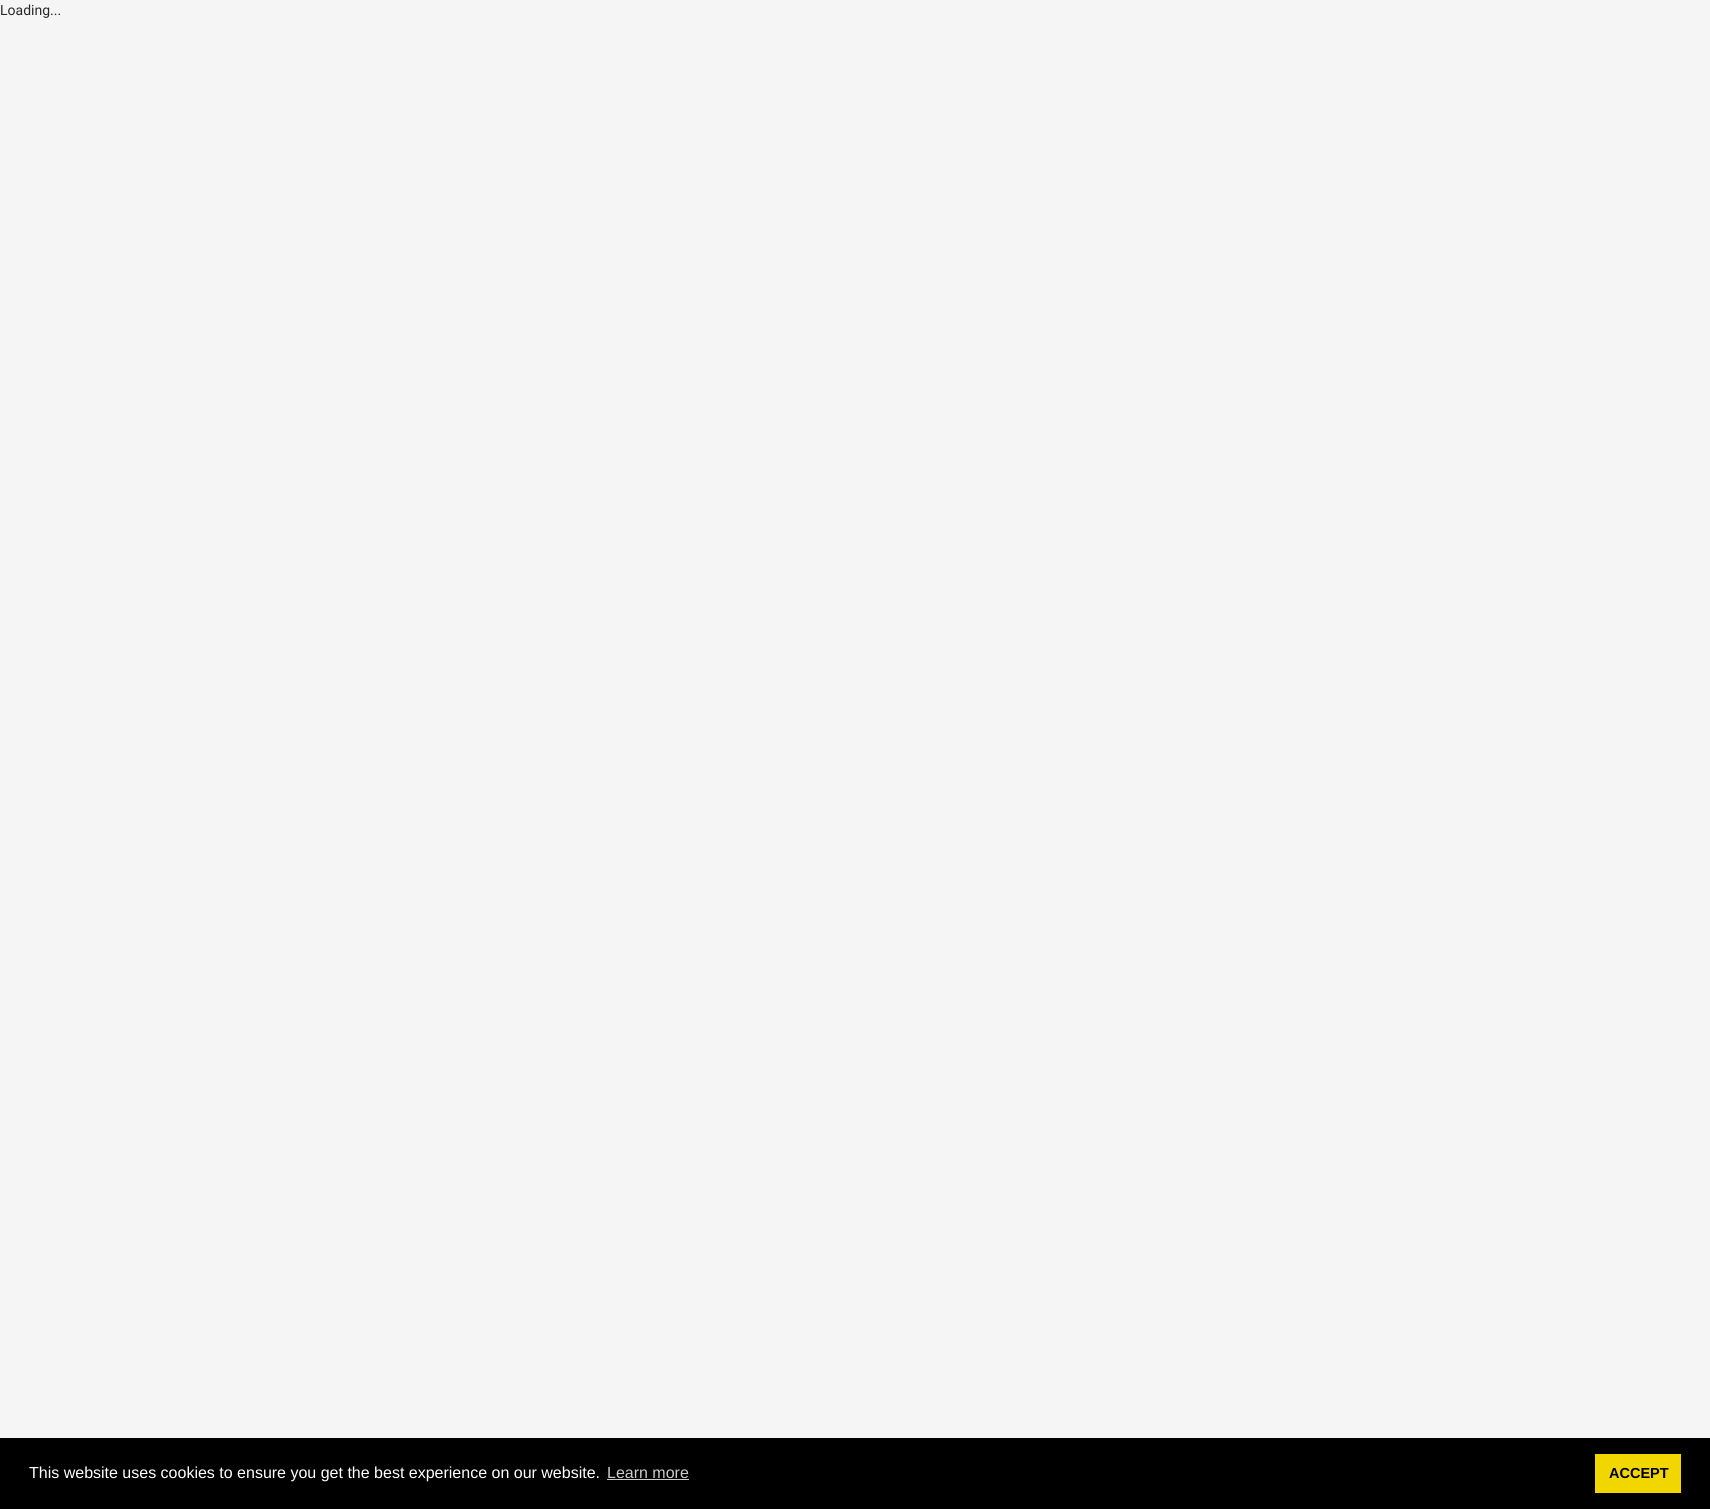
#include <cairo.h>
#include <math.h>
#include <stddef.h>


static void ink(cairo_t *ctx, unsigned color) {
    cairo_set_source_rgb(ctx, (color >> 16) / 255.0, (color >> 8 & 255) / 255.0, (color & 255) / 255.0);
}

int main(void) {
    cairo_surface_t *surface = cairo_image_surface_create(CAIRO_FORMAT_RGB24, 1710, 1509);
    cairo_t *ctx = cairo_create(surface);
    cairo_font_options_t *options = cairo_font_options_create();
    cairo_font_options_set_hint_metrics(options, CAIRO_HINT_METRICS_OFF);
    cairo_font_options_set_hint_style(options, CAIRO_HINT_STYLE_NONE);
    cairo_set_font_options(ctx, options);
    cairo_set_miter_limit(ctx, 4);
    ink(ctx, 0xF5F5F5);
    cairo_paint(ctx);
    cairo_select_font_face(ctx, "Roboto", CAIRO_FONT_SLANT_NORMAL, CAIRO_FONT_WEIGHT_NORMAL);
    cairo_set_font_size(ctx, 14);
    ink(ctx, 0x292929);
    cairo_move_to(ctx, 0, 15);
    cairo_show_text(ctx, "Loading...");
    ink(ctx, 0x000000);
    cairo_rectangle(ctx, 0, 1438, 1710, 71);
    cairo_fill(ctx);
    cairo_select_font_face(ctx, "Liberation Sans", CAIRO_FONT_SLANT_NORMAL, CAIRO_FONT_WEIGHT_NORMAL);
    cairo_set_font_size(ctx, 16);
    ink(ctx, 0xFFFFFF);
    cairo_move_to(ctx, 29, 1478);
    cairo_show_text(ctx, "This website uses cookies to ensure you get the best experience on our website.");
    ink(ctx, 0xCCCCCC);
    cairo_move_to(ctx, 607, 1478);
    cairo_show_text(ctx, "Learn more");
    cairo_rectangle(ctx, 607, 1479, 82, 1);
    cairo_fill(ctx);
    ink(ctx, 0xF1D600);
    cairo_rectangle(ctx, 1595, 1454, 86, 39);
    cairo_fill(ctx);
    cairo_select_font_face(ctx, "Liberation Sans", CAIRO_FONT_SLANT_NORMAL, CAIRO_FONT_WEIGHT_BOLD);
    cairo_set_font_size(ctx, 14.5);
    ink(ctx, 0x000000);
    cairo_move_to(ctx, 1609, 1478);
    cairo_show_text(ctx, "ACCEPT");
    cairo_surface_write_to_png(surface, "image.png");
    cairo_font_options_destroy(options);
    cairo_destroy(ctx);
    cairo_surface_destroy(surface);
    return 0;
}
